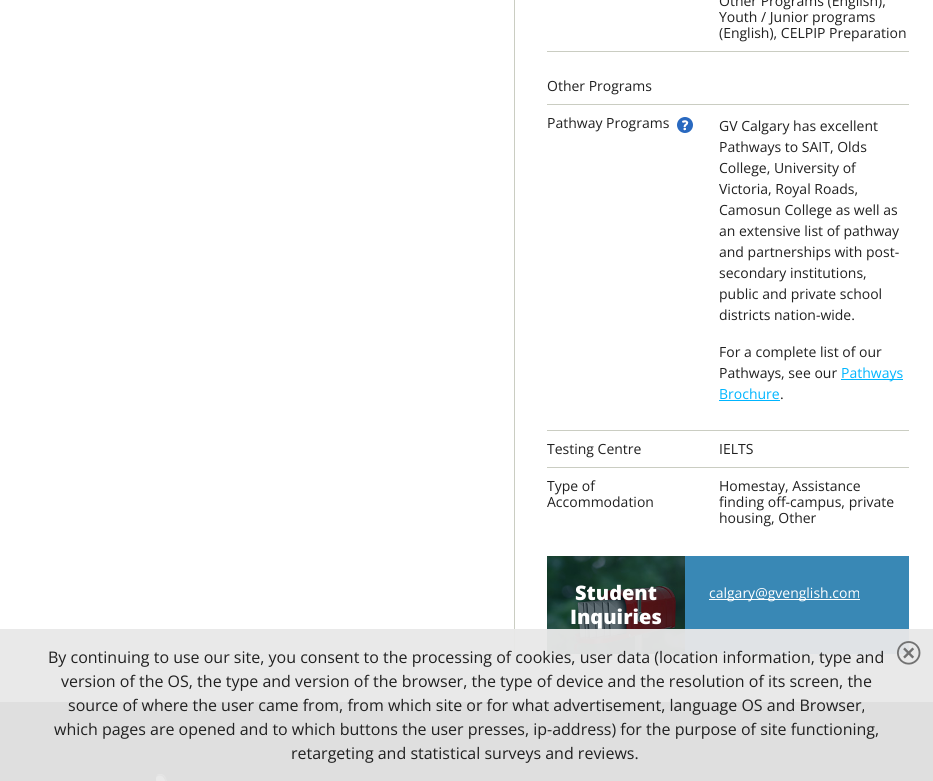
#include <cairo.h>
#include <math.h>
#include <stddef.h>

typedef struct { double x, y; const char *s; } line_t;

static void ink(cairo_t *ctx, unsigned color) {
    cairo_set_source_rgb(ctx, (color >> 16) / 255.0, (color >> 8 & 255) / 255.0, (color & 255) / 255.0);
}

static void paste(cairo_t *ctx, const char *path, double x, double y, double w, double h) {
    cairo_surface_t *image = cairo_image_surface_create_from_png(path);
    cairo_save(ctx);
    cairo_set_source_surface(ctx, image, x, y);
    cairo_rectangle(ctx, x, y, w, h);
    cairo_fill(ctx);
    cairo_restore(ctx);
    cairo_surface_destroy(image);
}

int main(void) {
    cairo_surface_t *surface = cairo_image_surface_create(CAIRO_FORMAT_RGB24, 933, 781);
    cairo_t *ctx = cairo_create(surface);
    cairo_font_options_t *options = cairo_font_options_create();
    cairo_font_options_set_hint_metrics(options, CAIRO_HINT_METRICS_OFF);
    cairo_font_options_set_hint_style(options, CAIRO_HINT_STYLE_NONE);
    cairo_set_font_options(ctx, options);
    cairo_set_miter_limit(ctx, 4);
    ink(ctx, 0xFFFFFF);
    cairo_paint(ctx);
    ink(ctx, 0xCACDC2);
    cairo_rectangle(ctx, 514, 0, 1, 654);
    cairo_fill(ctx);
    cairo_select_font_face(ctx, "Open Sans", CAIRO_FONT_SLANT_NORMAL, CAIRO_FONT_WEIGHT_NORMAL);
    cairo_set_font_size(ctx, 14);
    ink(ctx, 0x202020);
    {
        static const line_t items[] = {
            {719, 6, "Other Programs (English),"},
            {719, 22, "Youth / Junior programs"},
            {719, 38, "(English), CELPIP Preparation"},
        };
        for (size_t i = 0; i < sizeof items / sizeof *items; i++) {
            cairo_move_to(ctx, items[i].x, items[i].y);
            cairo_show_text(ctx, items[i].s);
        }
    }
    ink(ctx, 0xCACDC2);
    cairo_rectangle(ctx, 547, 51, 362, 1);
    cairo_fill(ctx);
    ink(ctx, 0x202020);
    cairo_move_to(ctx, 547, 91);
    cairo_show_text(ctx, "Other Programs");
    ink(ctx, 0xCACDC2);
    cairo_rectangle(ctx, 547, 104, 362, 1);
    cairo_fill(ctx);
    ink(ctx, 0x202020);
    cairo_move_to(ctx, 547, 128);
    cairo_show_text(ctx, "Pathway Programs");
    paste(ctx, "media/1.png", 677, 117, 16, 16);
    {
        static const line_t items[] = {
            {719, 131, "GV Calgary has excellent"},
            {719, 152, "Pathways to SAIT, Olds"},
            {719, 173, "College, University of"},
            {719, 194, "Victoria, Royal Roads,"},
            {719, 215, "Camosun College as well as"},
            {719, 236, "an extensive list of pathway"},
            {719, 257, "and partnerships with post-"},
            {719, 278, "secondary institutions,"},
            {719, 299, "public and private school"},
            {719, 320, "districts nation-wide."},
            {719, 357, "For a complete list of our"},
            {719, 378, "Pathways, see our"},
        };
        for (size_t i = 0; i < sizeof items / sizeof *items; i++) {
            cairo_move_to(ctx, items[i].x, items[i].y);
            cairo_show_text(ctx, items[i].s);
        }
    }
    ink(ctx, 0x00B5FF);
    cairo_rectangle(ctx, 841, 379, 62, 1);
    cairo_fill(ctx);
    cairo_move_to(ctx, 841, 378);
    cairo_show_text(ctx, "Pathways");
    cairo_move_to(ctx, 719, 399);
    cairo_show_text(ctx, "Brochure");
    cairo_rectangle(ctx, 719, 400, 61, 1);
    cairo_fill(ctx);
    ink(ctx, 0x202020);
    cairo_move_to(ctx, 780, 399);
    cairo_show_text(ctx, ".");
    ink(ctx, 0xCACDC2);
    cairo_rectangle(ctx, 547, 430, 362, 1);
    cairo_fill(ctx);
    ink(ctx, 0x202020);
    cairo_move_to(ctx, 547, 454);
    cairo_show_text(ctx, "Testing Centre");
    cairo_move_to(ctx, 719, 454);
    cairo_show_text(ctx, "IELTS");
    ink(ctx, 0xCACDC2);
    cairo_rectangle(ctx, 547, 467, 362, 1);
    cairo_fill(ctx);
    ink(ctx, 0x202020);
    {
        static const line_t items[] = {
            {547, 491, "Type of"},
            {547, 507, "Accommodation"},
            {719, 491, "Homestay, Assistance"},
            {719, 507, "finding off-campus, private"},
            {719, 523, "housing, Other"},
        };
        for (size_t i = 0; i < sizeof items / sizeof *items; i++) {
            cairo_move_to(ctx, items[i].x, items[i].y);
            cairo_show_text(ctx, items[i].s);
        }
    }
    ink(ctx, 0x3988B5);
    cairo_rectangle(ctx, 685, 556, 224, 98);
    cairo_fill(ctx);
    paste(ctx, "media/2.png", 547, 556, 138, 98);
    cairo_select_font_face(ctx, "Open Sans ExtraBold", CAIRO_FONT_SLANT_NORMAL, CAIRO_FONT_WEIGHT_NORMAL);
    cairo_set_font_size(ctx, 20);
    ink(ctx, 0xFFFFFF);
    cairo_move_to(ctx, 575, 600);
    cairo_show_text(ctx, "Student");
    cairo_move_to(ctx, 570, 624);
    cairo_show_text(ctx, "Inquiries");
    cairo_rectangle(ctx, 709, 599, 151, 1);
    cairo_fill(ctx);
    cairo_select_font_face(ctx, "Open Sans", CAIRO_FONT_SLANT_NORMAL, CAIRO_FONT_WEIGHT_NORMAL);
    cairo_set_font_size(ctx, 14);
    cairo_move_to(ctx, 709, 598);
    cairo_show_text(ctx, "calgary@gvenglish.com");
    ink(ctx, 0x2D2D2D);
    cairo_rectangle(ctx, 0, 702, 933, 79);
    cairo_fill(ctx);
    paste(ctx, "media/3.png", 155, 774, 13, 7);
    cairo_set_source_rgba(ctx, 0.91, 0.91, 0.91, 0.95);
    cairo_rectangle(ctx, 0, 629, 933, 152);
    cairo_fill(ctx);
    cairo_set_font_size(ctx, 16);
    ink(ctx, 0x202020);
    {
        static const line_t items[] = {
            {48, 663, "By continuing to use our site, you consent to the processing of cookies, user data (location information, type and"},
            {61, 687, "version of the OS, the type and version of the browser, the type of device and the resolution of its screen, the"},
            {68, 711, "source of where the user came from, from which site or for what advertisement, language OS and Browser,"},
            {54, 735, "which pages are opened and to which buttons the user presses, ip-address) for the purpose of site functioning,"},
            {291, 759, "retargeting and statistical surveys and reviews."},
        };
        for (size_t i = 0; i < sizeof items / sizeof *items; i++) {
            cairo_move_to(ctx, items[i].x, items[i].y);
            cairo_show_text(ctx, items[i].s);
        }
    }
    paste(ctx, "media/4.png", 897, 641, 24, 24);
    cairo_surface_write_to_png(surface, "image.png");
    cairo_font_options_destroy(options);
    cairo_destroy(ctx);
    cairo_surface_destroy(surface);
    return 0;
}
